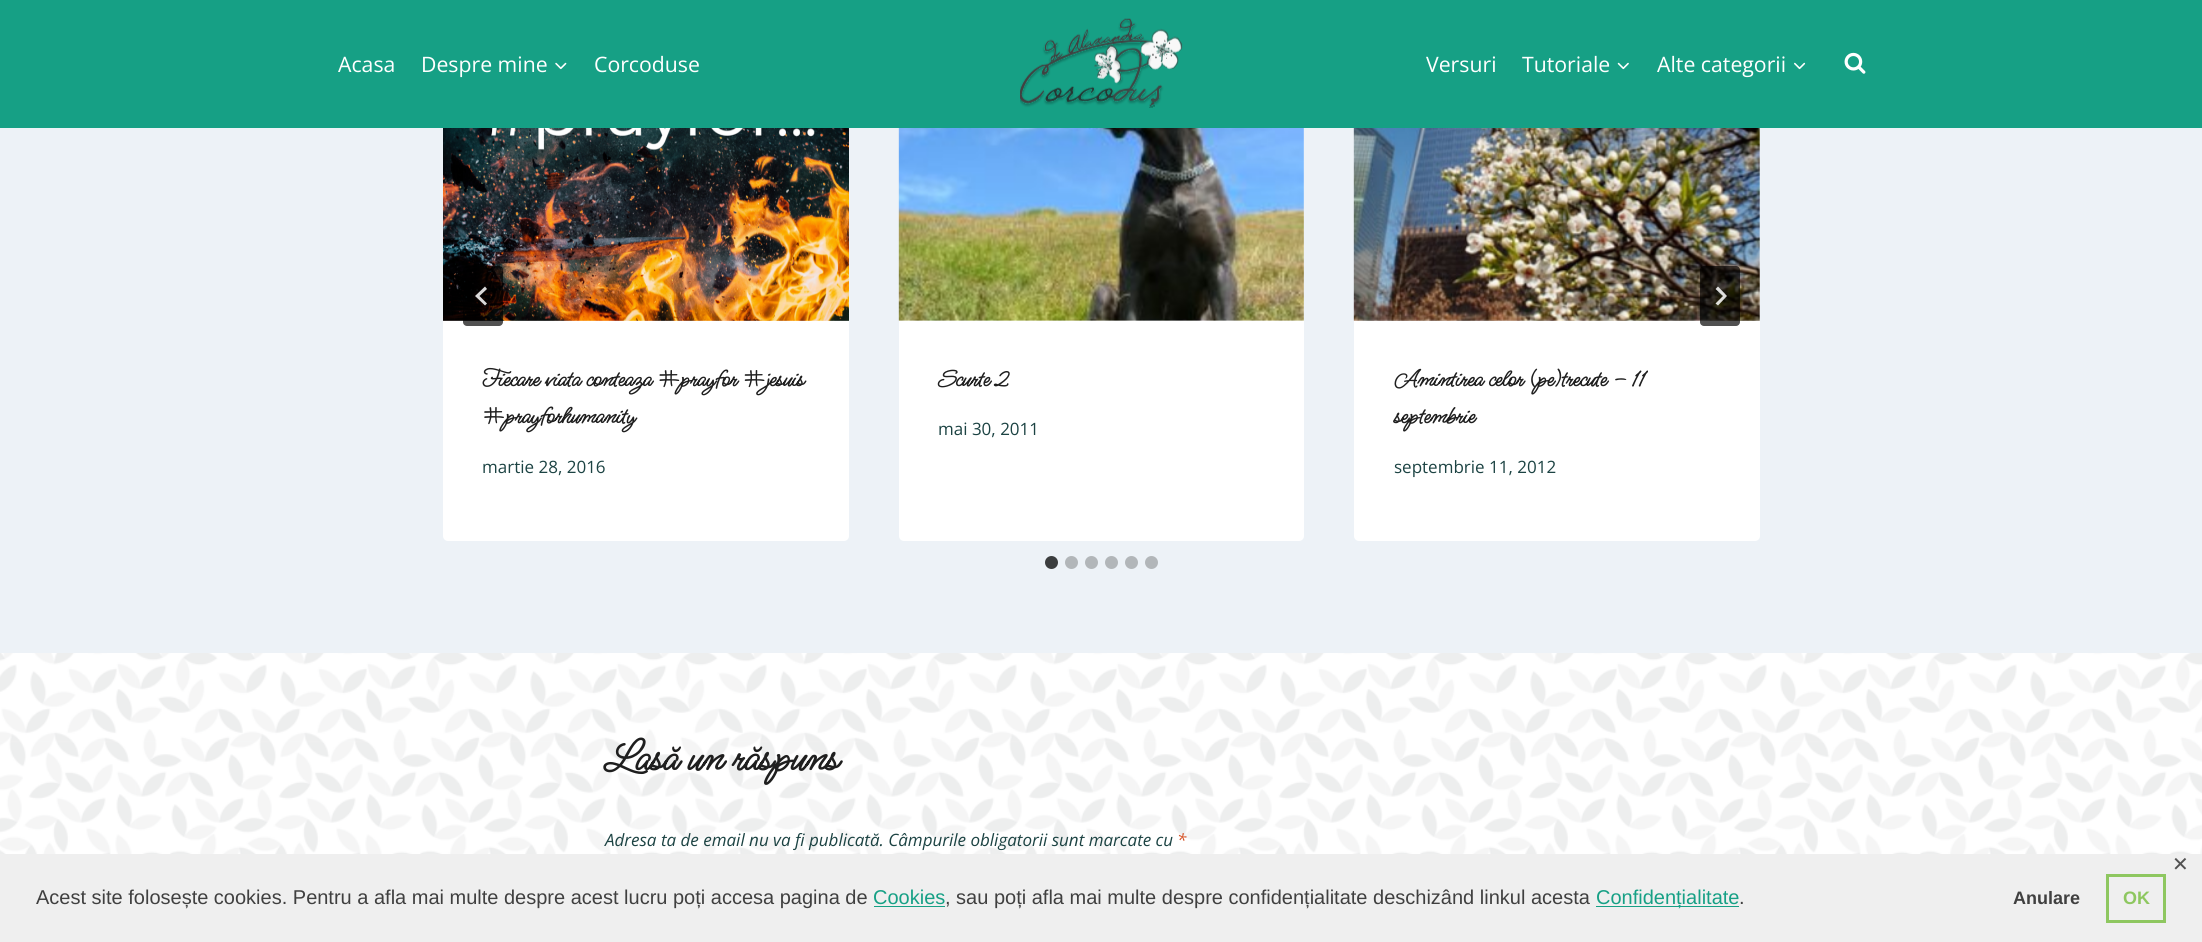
#include <cairo.h>
#include <math.h>
#include <stddef.h>


static void ink(cairo_t *ctx, unsigned color) {
    cairo_set_source_rgb(ctx, (color >> 16) / 255.0, (color >> 8 & 255) / 255.0, (color & 255) / 255.0);
}

static void round_path(cairo_t *ctx, double x, double y, double w, double h, double r) {
    cairo_new_sub_path(ctx);
    cairo_arc(ctx, x + w - r, y + h - r, r, 0, M_PI / 2);
    cairo_arc(ctx, x + r, y + h - r, r, M_PI / 2, M_PI);
    cairo_arc(ctx, x + r, y + r, r, M_PI, 1.5 * M_PI);
    cairo_arc(ctx, x + w - r, y + r, r, 1.5 * M_PI, 2 * M_PI);
    cairo_close_path(ctx);
}

static void paste(cairo_t *ctx, const char *path, double x, double y, double w, double h) {
    cairo_surface_t *image = cairo_image_surface_create_from_png(path);
    cairo_save(ctx);
    cairo_set_source_surface(ctx, image, x, y);
    cairo_rectangle(ctx, x, y, w, h);
    cairo_fill(ctx);
    cairo_restore(ctx);
    cairo_surface_destroy(image);
}

int main(void) {
    cairo_surface_t *surface = cairo_image_surface_create(CAIRO_FORMAT_RGB24, 2202, 942);
    cairo_t *ctx = cairo_create(surface);
    cairo_font_options_t *options = cairo_font_options_create();
    cairo_font_options_set_hint_metrics(options, CAIRO_HINT_METRICS_OFF);
    cairo_font_options_set_hint_style(options, CAIRO_HINT_STYLE_NONE);
    cairo_set_font_options(ctx, options);
    cairo_set_miter_limit(ctx, 4);
    ink(ctx, 0xFFFFFF);
    cairo_paint(ctx);
    paste(ctx, "media/1.png", 0, 653, 2202, 201);
    ink(ctx, 0xEDF2F7);
    cairo_rectangle(ctx, 0, 128, 2202, 525);
    cairo_fill(ctx);
    ink(ctx, 0xFFFFFF);
    round_path(ctx, 443, 50, 406, 491, 5);
    cairo_fill(ctx);
    round_path(ctx, 899, 50, 405, 491, 5);
    cairo_fill(ctx);
    round_path(ctx, 1354, 50, 406, 491, 5);
    cairo_fill(ctx);
    ink(ctx, 0x16A085);
    cairo_rectangle(ctx, 0, 0, 2202, 128);
    cairo_fill(ctx);
    cairo_select_font_face(ctx, "Open Sans", CAIRO_FONT_SLANT_NORMAL, CAIRO_FONT_WEIGHT_NORMAL);
    cairo_set_font_size(ctx, 21.25);
    ink(ctx, 0xFFFFFF);
    cairo_move_to(ctx, 338, 72);
    cairo_show_text(ctx, "Acasa");
    cairo_move_to(ctx, 421, 72);
    cairo_show_text(ctx, "Despre mine");
    paste(ctx, "media/2.png", 555, 62, 12, 8);
    cairo_move_to(ctx, 594, 72);
    cairo_show_text(ctx, "Corcoduse");
    paste(ctx, "media/3.png", 1020, 18, 163, 90);
    cairo_move_to(ctx, 1426, 72);
    cairo_show_text(ctx, "Versuri");
    cairo_move_to(ctx, 1522, 72);
    cairo_show_text(ctx, "Tutoriale");
    paste(ctx, "media/4.png", 1617, 62, 12, 8);
    cairo_move_to(ctx, 1657, 72);
    cairo_show_text(ctx, "Alte categorii");
    paste(ctx, "media/5.png", 1794, 62, 12, 8);
    paste(ctx, "media/6.png", 1844, 52, 22, 22);
    paste(ctx, "media/7.png", 443, 128, 406, 193);
    cairo_set_source_rgba(ctx, 0, 0, 0, 0.68);
    round_path(ctx, 463, 266, 40, 60, 4);
    cairo_fill(ctx);
    cairo_set_source_rgba(ctx, 1, 1, 1, 0.85);
    cairo_new_path(ctx);
    cairo_move_to(ctx, 485, 286.5);
    cairo_line_to(ctx, 487, 289);
    cairo_line_to(ctx, 479.5, 296);
    cairo_line_to(ctx, 487, 303.5);
    cairo_line_to(ctx, 485, 305.5);
    cairo_line_to(ctx, 475, 296);
    cairo_close_path(ctx);
    cairo_fill(ctx);
    paste(ctx, "media/9.png", 1353, 128, 407, 193);
    cairo_set_source_rgba(ctx, 0, 0, 0, 0.68);
    round_path(ctx, 1700, 266, 40, 60, 4);
    cairo_fill(ctx);
    cairo_set_source_rgba(ctx, 1, 1, 1, 0.85);
    cairo_new_path(ctx);
    cairo_move_to(ctx, 1718, 286.5);
    cairo_line_to(ctx, 1715.5, 289);
    cairo_line_to(ctx, 1723, 296);
    cairo_line_to(ctx, 1715.5, 303.5);
    cairo_line_to(ctx, 1718, 305.5);
    cairo_line_to(ctx, 1727, 296);
    cairo_close_path(ctx);
    cairo_fill(ctx);
    cairo_select_font_face(ctx, "Ms Madi", CAIRO_FONT_SLANT_NORMAL, CAIRO_FONT_WEIGHT_BOLD);
    cairo_set_font_size(ctx, 25);
    ink(ctx, 0x1F1F1F);
    cairo_move_to(ctx, 482, 386);
    cairo_show_text(ctx, "Fiecare viata conteaza #prayfor #jesuis");
    cairo_move_to(ctx, 482, 423);
    cairo_show_text(ctx, "#prayforhumanity");
    cairo_select_font_face(ctx, "Open Sans", CAIRO_FONT_SLANT_NORMAL, CAIRO_FONT_WEIGHT_NORMAL);
    cairo_set_font_size(ctx, 17);
    ink(ctx, 0x1C4343);
    cairo_move_to(ctx, 482, 473);
    cairo_show_text(ctx, "martie 28, 2016");
    paste(ctx, "media/8.png", 898, 128, 406, 193);
    cairo_select_font_face(ctx, "Ms Madi", CAIRO_FONT_SLANT_NORMAL, CAIRO_FONT_WEIGHT_BOLD);
    cairo_set_font_size(ctx, 25);
    ink(ctx, 0x1F1F1F);
    cairo_move_to(ctx, 938, 386);
    cairo_show_text(ctx, "Scurte 2");
    cairo_select_font_face(ctx, "Open Sans", CAIRO_FONT_SLANT_NORMAL, CAIRO_FONT_WEIGHT_NORMAL);
    cairo_set_font_size(ctx, 17);
    ink(ctx, 0x1C4343);
    cairo_move_to(ctx, 938, 435);
    cairo_show_text(ctx, "mai 30, 2011");
    cairo_select_font_face(ctx, "Ms Madi", CAIRO_FONT_SLANT_NORMAL, CAIRO_FONT_WEIGHT_BOLD);
    cairo_set_font_size(ctx, 25);
    ink(ctx, 0x1F1F1F);
    cairo_move_to(ctx, 1394, 386);
    cairo_show_text(ctx, "Amintirea celor (pe)trecute – 11");
    cairo_move_to(ctx, 1394, 423);
    cairo_show_text(ctx, "septembrie");
    cairo_select_font_face(ctx, "Open Sans", CAIRO_FONT_SLANT_NORMAL, CAIRO_FONT_WEIGHT_NORMAL);
    cairo_set_font_size(ctx, 17);
    ink(ctx, 0x1C4343);
    cairo_move_to(ctx, 1394, 473);
    cairo_show_text(ctx, "septembrie 11, 2012");
    ink(ctx, 0x3B3D3E);
    cairo_new_path(ctx);
    cairo_arc(ctx, 1051.5, 562.5, 6.5, 0, 2 * M_PI);
    cairo_fill(ctx);
    ink(ctx, 0xB2B6B9);
    cairo_arc(ctx, 1071.5, 562.5, 6.5, 0, 2 * M_PI);
    cairo_fill(ctx);
    cairo_arc(ctx, 1091.5, 562.5, 6.5, 0, 2 * M_PI);
    cairo_fill(ctx);
    cairo_arc(ctx, 1111.5, 562.5, 6.5, 0, 2 * M_PI);
    cairo_fill(ctx);
    cairo_arc(ctx, 1131.5, 562.5, 6.5, 0, 2 * M_PI);
    cairo_fill(ctx);
    cairo_arc(ctx, 1151.5, 562.5, 6.5, 0, 2 * M_PI);
    cairo_fill(ctx);
    cairo_select_font_face(ctx, "Ms Madi", CAIRO_FONT_SLANT_NORMAL, CAIRO_FONT_WEIGHT_BOLD);
    cairo_set_font_size(ctx, 43.75);
    ink(ctx, 0x1F1F1F);
    cairo_move_to(ctx, 605, 770);
    cairo_show_text(ctx, "Lasă un răspuns");
    cairo_select_font_face(ctx, "Open Sans", CAIRO_FONT_SLANT_ITALIC, CAIRO_FONT_WEIGHT_NORMAL);
    cairo_set_font_size(ctx, 17);
    ink(ctx, 0x1C4343);
    cairo_move_to(ctx, 605, 846);
    cairo_show_text(ctx, "Adresa ta de email nu va fi publicată. Câmpurile obligatorii sunt marcate cu");
    ink(ctx, 0xD54E21);
    cairo_move_to(ctx, 1177, 846);
    cairo_show_text(ctx, "*");
    ink(ctx, 0xEFEFEF);
    cairo_rectangle(ctx, 0, 854, 2202, 88);
    cairo_fill(ctx);
    cairo_select_font_face(ctx, "DejaVu Sans", CAIRO_FONT_SLANT_NORMAL, CAIRO_FONT_WEIGHT_NORMAL);
    cairo_set_font_size(ctx, 20);
    ink(ctx, 0x525252);
    cairo_move_to(ctx, 2172, 871);
    cairo_show_text(ctx, "✕");
    cairo_select_font_face(ctx, "Liberation Sans", CAIRO_FONT_SLANT_NORMAL, CAIRO_FONT_WEIGHT_NORMAL);
    ink(ctx, 0x404040);
    cairo_move_to(ctx, 36, 904);
    cairo_show_text(ctx, "Acest site folosește cookies. Pentru a afla mai multe despre acest lucru poți accesa pagina de");
    ink(ctx, 0x16A085);
    cairo_move_to(ctx, 873, 904);
    cairo_show_text(ctx, "Cookies");
    cairo_rectangle(ctx, 874, 906, 71, 1);
    cairo_fill(ctx);
    ink(ctx, 0x404040);
    cairo_move_to(ctx, 945, 904);
    cairo_show_text(ctx, ", sau poți afla mai multe despre confidențialitate deschizând linkul acesta");
    ink(ctx, 0x16A085);
    cairo_rectangle(ctx, 1596, 906, 143, 1);
    cairo_fill(ctx);
    cairo_move_to(ctx, 1596, 904);
    cairo_show_text(ctx, "Confidențialitate");
    ink(ctx, 0x404040);
    cairo_move_to(ctx, 1739, 904);
    cairo_show_text(ctx, ".");
    cairo_select_font_face(ctx, "Liberation Sans", CAIRO_FONT_SLANT_NORMAL, CAIRO_FONT_WEIGHT_BOLD);
    cairo_set_font_size(ctx, 18);
    cairo_move_to(ctx, 2013, 904);
    cairo_show_text(ctx, "Anulare");
    cairo_rectangle(ctx, 2107.5, 875.5, 57, 46);
    ink(ctx, 0x8EC760);
    cairo_set_line_width(ctx, 3);
    cairo_stroke(ctx);
    cairo_move_to(ctx, 2123, 904);
    cairo_show_text(ctx, "OK");
    cairo_surface_write_to_png(surface, "image.png");
    cairo_font_options_destroy(options);
    cairo_destroy(ctx);
    cairo_surface_destroy(surface);
    return 0;
}
